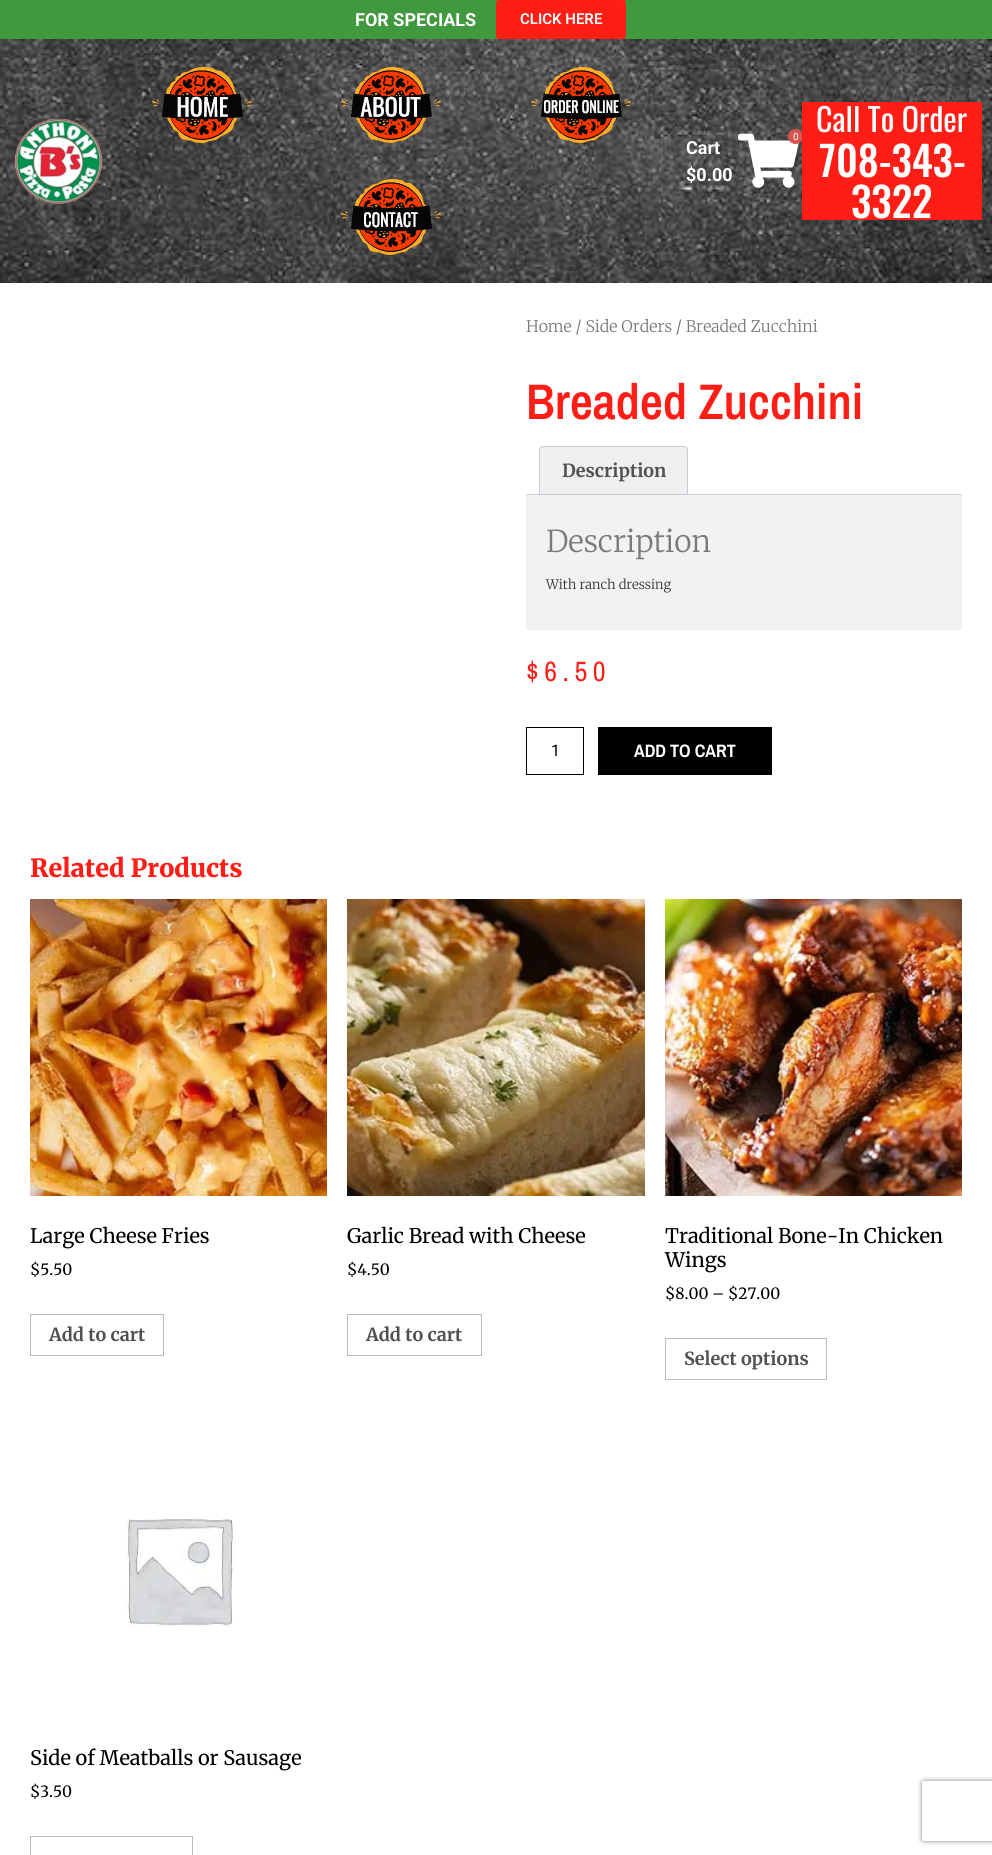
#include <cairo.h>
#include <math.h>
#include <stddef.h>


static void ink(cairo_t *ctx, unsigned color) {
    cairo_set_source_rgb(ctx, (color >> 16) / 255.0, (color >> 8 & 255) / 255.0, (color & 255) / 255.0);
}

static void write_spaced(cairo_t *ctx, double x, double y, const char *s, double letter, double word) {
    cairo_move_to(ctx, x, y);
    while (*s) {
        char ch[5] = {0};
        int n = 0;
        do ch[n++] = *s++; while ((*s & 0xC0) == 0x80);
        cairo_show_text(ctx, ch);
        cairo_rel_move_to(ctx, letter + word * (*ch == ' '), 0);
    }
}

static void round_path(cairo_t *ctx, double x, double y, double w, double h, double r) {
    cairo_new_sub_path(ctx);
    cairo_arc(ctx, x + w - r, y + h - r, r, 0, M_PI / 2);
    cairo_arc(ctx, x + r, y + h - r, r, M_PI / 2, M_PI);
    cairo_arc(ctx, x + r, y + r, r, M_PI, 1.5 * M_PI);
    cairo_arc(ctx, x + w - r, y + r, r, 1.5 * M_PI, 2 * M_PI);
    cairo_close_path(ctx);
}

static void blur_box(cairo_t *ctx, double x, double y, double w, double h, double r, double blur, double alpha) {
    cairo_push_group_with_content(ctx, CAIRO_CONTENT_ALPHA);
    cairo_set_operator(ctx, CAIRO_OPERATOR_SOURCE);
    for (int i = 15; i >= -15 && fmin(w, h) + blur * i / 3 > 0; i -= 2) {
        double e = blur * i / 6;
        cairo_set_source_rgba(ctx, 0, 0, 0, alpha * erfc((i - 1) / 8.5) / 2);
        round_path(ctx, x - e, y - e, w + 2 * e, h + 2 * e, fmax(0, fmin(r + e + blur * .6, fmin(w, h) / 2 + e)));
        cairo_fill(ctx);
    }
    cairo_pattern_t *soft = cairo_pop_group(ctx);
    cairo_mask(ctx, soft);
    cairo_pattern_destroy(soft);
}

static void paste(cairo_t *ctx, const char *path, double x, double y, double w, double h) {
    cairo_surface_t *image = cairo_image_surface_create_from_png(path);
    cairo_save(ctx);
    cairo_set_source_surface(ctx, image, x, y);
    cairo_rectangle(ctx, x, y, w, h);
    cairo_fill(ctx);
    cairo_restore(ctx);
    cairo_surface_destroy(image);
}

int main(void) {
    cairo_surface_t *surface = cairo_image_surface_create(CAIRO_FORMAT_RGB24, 992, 1855);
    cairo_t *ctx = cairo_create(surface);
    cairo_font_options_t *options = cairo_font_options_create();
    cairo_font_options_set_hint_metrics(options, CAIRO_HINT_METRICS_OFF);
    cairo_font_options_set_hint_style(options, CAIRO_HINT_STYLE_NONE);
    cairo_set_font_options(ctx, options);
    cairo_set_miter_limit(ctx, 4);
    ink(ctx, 0xFFFFFF);
    cairo_paint(ctx);
    ink(ctx, 0x41993F);
    cairo_rectangle(ctx, 0, 0, 992, 39);
    cairo_fill(ctx);
    cairo_select_font_face(ctx, "Roboto", CAIRO_FONT_SLANT_NORMAL, CAIRO_FONT_WEIGHT_BOLD);
    cairo_set_font_size(ctx, 18);
    ink(ctx, 0xFFFFFF);
    cairo_move_to(ctx, 355, 26);
    cairo_show_text(ctx, "FOR SPECIALS");
    ink(ctx, 0xFF1E16);
    round_path(ctx, 496, 0, 130, 39, 3);
    cairo_fill(ctx);
    cairo_select_font_face(ctx, "Roboto SemiBold", CAIRO_FONT_SLANT_NORMAL, CAIRO_FONT_WEIGHT_NORMAL);
    cairo_set_font_size(ctx, 15);
    ink(ctx, 0xFFFFFF);
    cairo_move_to(ctx, 520, 24);
    cairo_show_text(ctx, "CLICK HERE");
    paste(ctx, "media/1.png", 0, 39, 992, 244);
    paste(ctx, "media/2.png", 14, 118, 89, 86);
    paste(ctx, "media/3.png", 152, 67, 100, 76);
    paste(ctx, "media/4.png", 341, 67, 100, 76);
    paste(ctx, "media/5.png", 531, 67, 100, 76);
    paste(ctx, "media/6.png", 341, 179, 100, 76);
    paste(ctx, "media/7.png", 738, 133, 61, 55);
    ink(ctx, 0xD9534F);
    cairo_arc(ctx, 795.5, 136.5, 7.5, 0, 2 * M_PI);
    cairo_fill(ctx);
    cairo_select_font_face(ctx, "Roboto", CAIRO_FONT_SLANT_NORMAL, CAIRO_FONT_WEIGHT_NORMAL);
    cairo_set_font_size(ctx, 10);
    ink(ctx, 0xFFFFFF);
    cairo_move_to(ctx, 793, 140);
    cairo_show_text(ctx, "0");
    cairo_select_font_face(ctx, "Roboto", CAIRO_FONT_SLANT_NORMAL, CAIRO_FONT_WEIGHT_BOLD);
    cairo_set_font_size(ctx, 18);
    cairo_move_to(ctx, 686, 154);
    cairo_show_text(ctx, "Cart");
    cairo_move_to(ctx, 686, 181);
    cairo_show_text(ctx, "$0.00");
    ink(ctx, 0xFF1E16);
    cairo_rectangle(ctx, 802, 102, 180, 118);
    cairo_fill(ctx);
    cairo_select_font_face(ctx, "Oswald", CAIRO_FONT_SLANT_NORMAL, CAIRO_FONT_WEIGHT_NORMAL);
    cairo_set_font_size(ctx, 32);
    ink(ctx, 0xFFFFFF);
    cairo_move_to(ctx, 816, 132);
    cairo_show_text(ctx, "Call To Order");
    cairo_select_font_face(ctx, "Oswald Medium", CAIRO_FONT_SLANT_NORMAL, CAIRO_FONT_WEIGHT_NORMAL);
    cairo_set_font_size(ctx, 41);
    cairo_move_to(ctx, 819, 177);
    cairo_show_text(ctx, "708-343-");
    cairo_move_to(ctx, 851, 218);
    cairo_show_text(ctx, "3322");
    cairo_select_font_face(ctx, "Merriweather Light", CAIRO_FONT_SLANT_NORMAL, CAIRO_FONT_WEIGHT_NORMAL);
    cairo_set_font_size(ctx, 16);
    ink(ctx, 0x7A7A7A);
    cairo_move_to(ctx, 526, 332);
    cairo_show_text(ctx, "Home / Side Orders / Breaded Zucchini");
    cairo_select_font_face(ctx, "Archivo Narrow SemiBold", CAIRO_FONT_SLANT_NORMAL, CAIRO_FONT_WEIGHT_NORMAL);
    cairo_set_font_size(ctx, 50);
    ink(ctx, 0xFF1E16);
    cairo_move_to(ctx, 526, 419);
    cairo_show_text(ctx, "Breaded Zucchini");
    ink(ctx, 0xD3CED2);
    cairo_rectangle(ctx, 526, 494, 436, 1);
    cairo_fill(ctx);
    ink(ctx, 0xEFEFEF);
    cairo_new_path(ctx);
    cairo_move_to(ctx, 543, 446.5);
    cairo_line_to(ctx, 684, 446.5);
    cairo_curve_to(ctx, 686, 446.5, 687.5, 448, 687.5, 450);
    cairo_line_to(ctx, 687.5, 494.5);
    cairo_line_to(ctx, 539.5, 494.5);
    cairo_line_to(ctx, 539.5, 450);
    cairo_curve_to(ctx, 539.5, 448, 541, 446.5, 543, 446.5);
    cairo_close_path(ctx);
    cairo_fill_preserve(ctx);
    ink(ctx, 0xCFC8D8);
    cairo_set_line_width(ctx, 1);
    cairo_stroke(ctx);
    cairo_select_font_face(ctx, "Merriweather", CAIRO_FONT_SLANT_NORMAL, CAIRO_FONT_WEIGHT_BOLD);
    cairo_set_font_size(ctx, 18);
    ink(ctx, 0x515151);
    cairo_move_to(ctx, 562, 477);
    cairo_show_text(ctx, "Description");
    ink(ctx, 0xF2F2F2);
    cairo_rectangle(ctx, 526, 495, 436, 135);
    cairo_fill(ctx);
    cairo_select_font_face(ctx, "Merriweather Light", CAIRO_FONT_SLANT_NORMAL, CAIRO_FONT_WEIGHT_NORMAL);
    cairo_set_font_size(ctx, 30);
    ink(ctx, 0x7A7A7A);
    cairo_move_to(ctx, 546, 552);
    cairo_show_text(ctx, "Description");
    cairo_set_font_size(ctx, 13);
    ink(ctx, 0x333333);
    cairo_move_to(ctx, 546, 589);
    cairo_show_text(ctx, "With ranch dressing");
    cairo_select_font_face(ctx, "Archivo Narrow", CAIRO_FONT_SLANT_NORMAL, CAIRO_FONT_WEIGHT_NORMAL);
    cairo_set_font_size(ctx, 28);
    ink(ctx, 0xFF1E16);
    write_spaced(ctx, 526, 681, "$6.50", 5.5, 0);
    cairo_rectangle(ctx, 526.5, 727.5, 57, 47);
    ink(ctx, 0x000000);
    cairo_stroke(ctx);
    cairo_select_font_face(ctx, "Roboto", CAIRO_FONT_SLANT_NORMAL, CAIRO_FONT_WEIGHT_NORMAL);
    cairo_set_font_size(ctx, 16);
    cairo_move_to(ctx, 551, 756);
    cairo_show_text(ctx, "1");
    cairo_rectangle(ctx, 598, 727, 174, 48);
    cairo_fill(ctx);
    cairo_select_font_face(ctx, "Archivo Narrow", CAIRO_FONT_SLANT_NORMAL, CAIRO_FONT_WEIGHT_BOLD);
    cairo_set_font_size(ctx, 18);
    ink(ctx, 0xFFFFFF);
    cairo_move_to(ctx, 634, 757);
    cairo_show_text(ctx, "ADD TO CART");
    cairo_select_font_face(ctx, "Merriweather Black", CAIRO_FONT_SLANT_NORMAL, CAIRO_FONT_WEIGHT_NORMAL);
    cairo_set_font_size(ctx, 25);
    ink(ctx, 0xFF1E16);
    cairo_move_to(ctx, 30, 877);
    cairo_show_text(ctx, "Related Products");
    paste(ctx, "media/8.png", 30, 899, 297, 297);
    cairo_select_font_face(ctx, "Merriweather", CAIRO_FONT_SLANT_NORMAL, CAIRO_FONT_WEIGHT_NORMAL);
    cairo_set_font_size(ctx, 20);
    ink(ctx, 0x000000);
    cairo_move_to(ctx, 30, 1243);
    cairo_show_text(ctx, "Large Cheese Fries");
    cairo_set_font_size(ctx, 15.5);
    cairo_move_to(ctx, 30, 1275);
    cairo_show_text(ctx, "$5.50");
    cairo_rectangle(ctx, 30.5, 1314.5, 133, 41);
    ink(ctx, 0xBABABA);
    cairo_stroke(ctx);
    cairo_select_font_face(ctx, "Merriweather", CAIRO_FONT_SLANT_NORMAL, CAIRO_FONT_WEIGHT_BOLD);
    cairo_set_font_size(ctx, 18);
    ink(ctx, 0x515151);
    cairo_move_to(ctx, 49, 1341);
    cairo_show_text(ctx, "Add to cart");
    paste(ctx, "media/9.png", 347, 899, 298, 297);
    cairo_select_font_face(ctx, "Merriweather", CAIRO_FONT_SLANT_NORMAL, CAIRO_FONT_WEIGHT_NORMAL);
    cairo_set_font_size(ctx, 20);
    ink(ctx, 0x000000);
    cairo_move_to(ctx, 347, 1243);
    cairo_show_text(ctx, "Garlic Bread with Cheese");
    cairo_set_font_size(ctx, 15.5);
    cairo_move_to(ctx, 347, 1275);
    cairo_show_text(ctx, "$4.50");
    cairo_rectangle(ctx, 347.5, 1314.5, 134, 41);
    ink(ctx, 0xBABABA);
    cairo_stroke(ctx);
    cairo_select_font_face(ctx, "Merriweather", CAIRO_FONT_SLANT_NORMAL, CAIRO_FONT_WEIGHT_BOLD);
    cairo_set_font_size(ctx, 18);
    ink(ctx, 0x515151);
    cairo_move_to(ctx, 366, 1341);
    cairo_show_text(ctx, "Add to cart");
    paste(ctx, "media/10.png", 665, 899, 297, 297);
    cairo_select_font_face(ctx, "Merriweather", CAIRO_FONT_SLANT_NORMAL, CAIRO_FONT_WEIGHT_NORMAL);
    cairo_set_font_size(ctx, 20);
    ink(ctx, 0x000000);
    cairo_move_to(ctx, 665, 1243);
    cairo_show_text(ctx, "Traditional Bone-In Chicken");
    cairo_move_to(ctx, 665, 1267);
    cairo_show_text(ctx, "Wings");
    cairo_set_font_size(ctx, 15.5);
    cairo_move_to(ctx, 665, 1299);
    cairo_show_text(ctx, "$8.00 – $27.00");
    cairo_rectangle(ctx, 665.5, 1338.5, 161, 41);
    ink(ctx, 0xBABABA);
    cairo_stroke(ctx);
    cairo_select_font_face(ctx, "Merriweather", CAIRO_FONT_SLANT_NORMAL, CAIRO_FONT_WEIGHT_BOLD);
    cairo_set_font_size(ctx, 18);
    ink(ctx, 0x515151);
    cairo_move_to(ctx, 684, 1365);
    cairo_show_text(ctx, "Select options");
    paste(ctx, "media/11.png", 125, 1519, 111, 108);
    cairo_select_font_face(ctx, "Merriweather", CAIRO_FONT_SLANT_NORMAL, CAIRO_FONT_WEIGHT_NORMAL);
    cairo_set_font_size(ctx, 20);
    ink(ctx, 0x000000);
    cairo_move_to(ctx, 30, 1765);
    cairo_show_text(ctx, "Side of Meatballs or Sausage");
    cairo_set_font_size(ctx, 15.5);
    cairo_move_to(ctx, 30, 1797);
    cairo_show_text(ctx, "$3.50");
    cairo_rectangle(ctx, 30.5, 1836.5, 162, 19);
    ink(ctx, 0xBABABA);
    cairo_stroke(ctx);
    cairo_save(ctx);
    cairo_set_fill_rule(ctx, CAIRO_FILL_RULE_EVEN_ODD);
    cairo_new_path(ctx);
    cairo_move_to(ctx, 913, 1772);
    cairo_line_to(ctx, 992, 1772);
    cairo_line_to(ctx, 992, 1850);
    cairo_line_to(ctx, 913, 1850);
    cairo_close_path(ctx);
    cairo_move_to(ctx, 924, 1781);
    cairo_line_to(ctx, 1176, 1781);
    cairo_curve_to(ctx, 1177, 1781, 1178, 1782, 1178, 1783);
    cairo_line_to(ctx, 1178, 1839);
    cairo_curve_to(ctx, 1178, 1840, 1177, 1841, 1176, 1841);
    cairo_line_to(ctx, 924, 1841);
    cairo_curve_to(ctx, 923, 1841, 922, 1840, 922, 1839);
    cairo_line_to(ctx, 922, 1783);
    cairo_curve_to(ctx, 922, 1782, 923, 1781, 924, 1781);
    cairo_close_path(ctx);
    cairo_clip(ctx);
    ink(ctx, 0x808080);
    blur_box(ctx, 922, 1781, 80, 60, 2, 2.5, 1);
    cairo_restore(ctx);
    cairo_surface_write_to_png(surface, "image.png");
    cairo_font_options_destroy(options);
    cairo_destroy(ctx);
    cairo_surface_destroy(surface);
    return 0;
}
